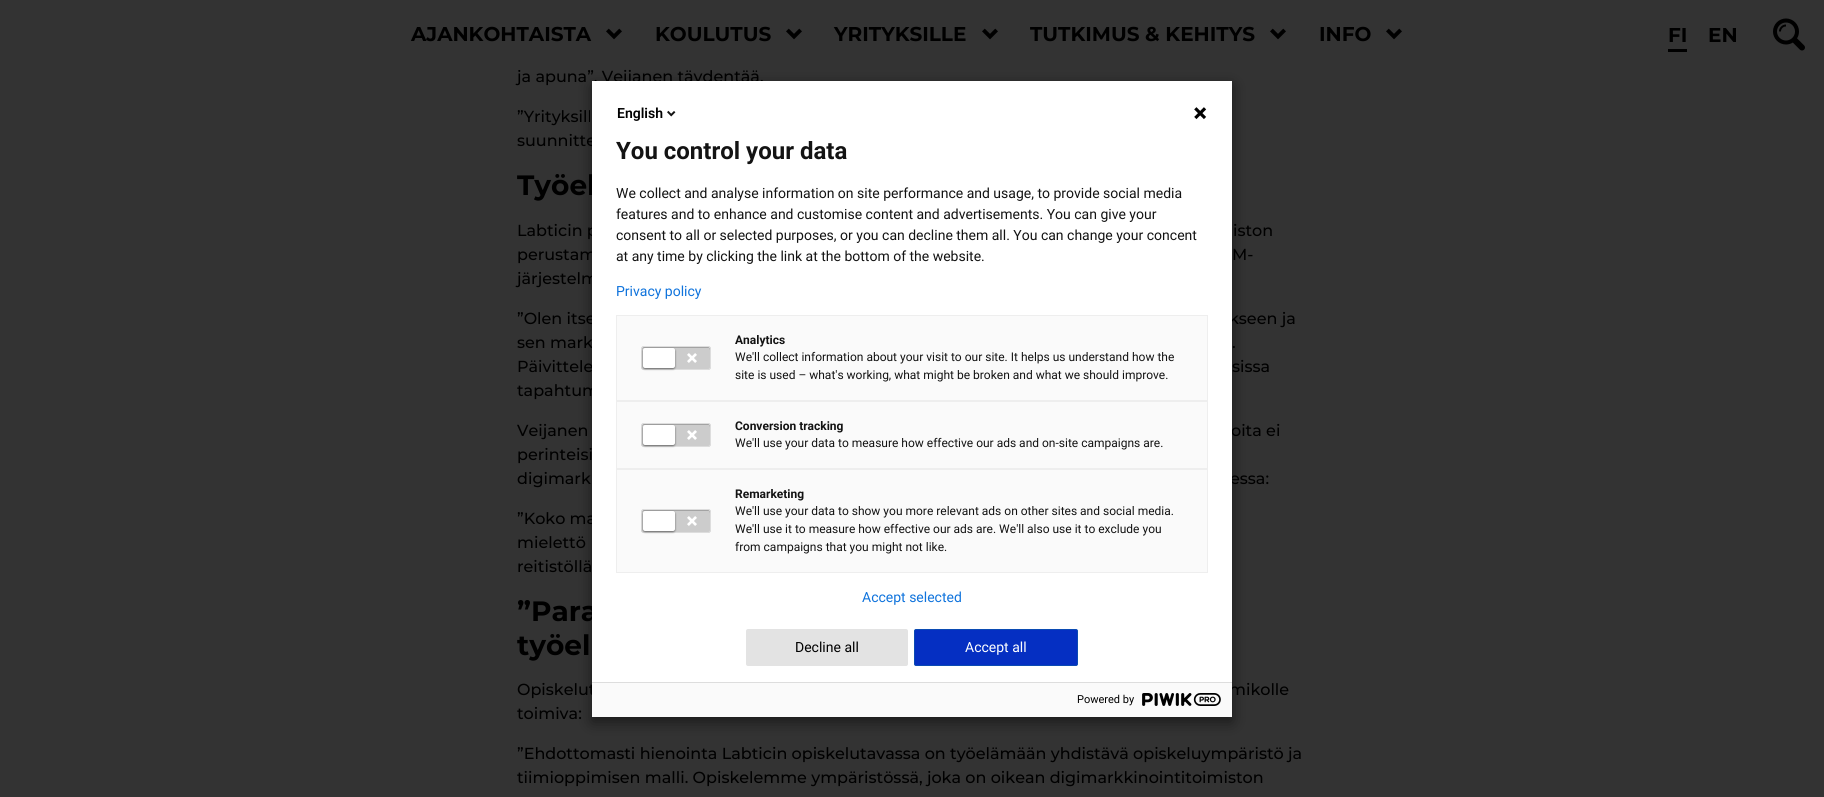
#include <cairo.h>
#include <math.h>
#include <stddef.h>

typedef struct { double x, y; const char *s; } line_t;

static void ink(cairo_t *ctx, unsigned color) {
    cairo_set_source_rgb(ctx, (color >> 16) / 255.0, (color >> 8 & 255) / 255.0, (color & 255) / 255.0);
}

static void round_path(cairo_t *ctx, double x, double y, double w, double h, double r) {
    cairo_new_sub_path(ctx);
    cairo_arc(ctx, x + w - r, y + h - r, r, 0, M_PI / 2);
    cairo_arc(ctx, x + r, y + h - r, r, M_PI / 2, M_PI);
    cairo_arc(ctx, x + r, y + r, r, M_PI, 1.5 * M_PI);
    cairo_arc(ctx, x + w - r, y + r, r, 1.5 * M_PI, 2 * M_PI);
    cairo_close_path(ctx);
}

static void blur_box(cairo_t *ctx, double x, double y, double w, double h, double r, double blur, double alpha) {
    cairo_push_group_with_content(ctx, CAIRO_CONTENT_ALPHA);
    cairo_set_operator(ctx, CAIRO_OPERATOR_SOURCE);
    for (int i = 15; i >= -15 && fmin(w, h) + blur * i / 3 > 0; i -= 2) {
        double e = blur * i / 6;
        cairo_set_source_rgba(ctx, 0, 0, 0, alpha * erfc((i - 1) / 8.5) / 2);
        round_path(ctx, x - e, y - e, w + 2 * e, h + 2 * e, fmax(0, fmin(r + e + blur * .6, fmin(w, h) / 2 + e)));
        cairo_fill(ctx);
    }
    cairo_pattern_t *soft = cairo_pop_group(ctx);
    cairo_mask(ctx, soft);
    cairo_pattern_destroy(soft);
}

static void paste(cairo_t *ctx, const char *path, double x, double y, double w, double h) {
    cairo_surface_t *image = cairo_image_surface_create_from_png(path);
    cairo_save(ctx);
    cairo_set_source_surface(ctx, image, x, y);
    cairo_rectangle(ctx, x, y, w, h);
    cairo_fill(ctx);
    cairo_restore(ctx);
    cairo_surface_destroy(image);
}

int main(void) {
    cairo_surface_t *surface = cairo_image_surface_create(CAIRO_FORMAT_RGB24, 1824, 797);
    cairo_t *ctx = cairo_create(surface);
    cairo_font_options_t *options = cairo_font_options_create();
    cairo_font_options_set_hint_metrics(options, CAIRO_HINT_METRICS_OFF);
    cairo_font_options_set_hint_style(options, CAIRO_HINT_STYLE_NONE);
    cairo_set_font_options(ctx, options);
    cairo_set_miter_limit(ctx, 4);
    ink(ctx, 0x333333);
    cairo_paint(ctx);
    cairo_select_font_face(ctx, "Montserrat Medium", CAIRO_FONT_SLANT_NORMAL, CAIRO_FONT_WEIGHT_NORMAL);
    cairo_set_font_size(ctx, 16);
    ink(ctx, 0x000000);
    cairo_move_to(ctx, 517, 82);
    cairo_show_text(ctx, "ja apuna”, Veijanen täydentää.");
    ink(ctx, 0x333333);
    cairo_rectangle(ctx, 519, 69, 1, 1);
    cairo_fill(ctx);
    cairo_select_font_face(ctx, "Montserrat", CAIRO_FONT_SLANT_NORMAL, CAIRO_FONT_WEIGHT_BOLD);
    cairo_set_font_size(ctx, 20);
    ink(ctx, 0x000000);
    cairo_move_to(ctx, 411, 41);
    cairo_show_text(ctx, "AJANKOHTAISTA");
    paste(ctx, "media/1.png", 606, 28, 16, 12);
    cairo_move_to(ctx, 655, 41);
    cairo_show_text(ctx, "KOULUTUS");
    paste(ctx, "media/1.png", 786, 28, 16, 12);
    cairo_move_to(ctx, 834, 41);
    cairo_show_text(ctx, "YRITYKSILLE");
    paste(ctx, "media/1.png", 982, 28, 16, 12);
    cairo_move_to(ctx, 1030, 41);
    cairo_show_text(ctx, "TUTKIMUS & KEHITYS");
    paste(ctx, "media/1.png", 1270, 28, 16, 12);
    cairo_move_to(ctx, 1319, 41);
    cairo_show_text(ctx, "INFO");
    paste(ctx, "media/1.png", 1386, 28, 16, 12);
    cairo_move_to(ctx, 1668, 42);
    cairo_show_text(ctx, "FI");
    cairo_rectangle(ctx, 1668, 49, 19, 3);
    cairo_fill(ctx);
    cairo_move_to(ctx, 1708, 42);
    cairo_show_text(ctx, "EN");
    paste(ctx, "media/2.png", 1773, 18, 32, 33);
    cairo_select_font_face(ctx, "Montserrat Medium", CAIRO_FONT_SLANT_NORMAL, CAIRO_FONT_WEIGHT_NORMAL);
    cairo_set_font_size(ctx, 16);
    cairo_move_to(ctx, 517, 122);
    cairo_show_text(ctx, "”Yrityksill");
    cairo_move_to(ctx, 517, 146);
    cairo_show_text(ctx, "suunnitte");
    cairo_select_font_face(ctx, "Montserrat", CAIRO_FONT_SLANT_NORMAL, CAIRO_FONT_WEIGHT_BOLD);
    cairo_set_font_size(ctx, 28);
    cairo_move_to(ctx, 517, 195);
    cairo_show_text(ctx, "Työel");
    cairo_select_font_face(ctx, "Montserrat Medium", CAIRO_FONT_SLANT_NORMAL, CAIRO_FONT_WEIGHT_NORMAL);
    cairo_set_font_size(ctx, 16);
    {
        static const line_t items[] = {
            {517, 236, "Labticin p"},
            {1233, 236, "iston"},
            {517, 260, "perustam"},
            {1232, 260, "M-"},
            {517, 284, "järjestelm"},
            {517, 324, "”Olen itse"},
            {1229, 324, "kseen ja"},
            {517, 348, "sen mark"},
            {1232, 348, "."},
            {517, 372, "Päivittele"},
            {1232, 372, "sissa"},
            {517, 396, "tapahtum"},
            {517, 436, "Veijanen"},
            {1231, 436, "oita ei"},
            {517, 460, "perinteisi"},
            {517, 484, "digimark"},
            {1230, 484, "essa:"},
            {517, 524, "”Koko ma"},
            {517, 548, "mielettö"},
            {517, 572, "reitistöllä"},
        };
        for (size_t i = 0; i < sizeof items / sizeof *items; i++) {
            cairo_move_to(ctx, items[i].x, items[i].y);
            cairo_show_text(ctx, items[i].s);
        }
    }
    cairo_select_font_face(ctx, "Montserrat", CAIRO_FONT_SLANT_NORMAL, CAIRO_FONT_WEIGHT_BOLD);
    cairo_set_font_size(ctx, 28);
    cairo_move_to(ctx, 517, 621);
    cairo_show_text(ctx, "”Para");
    cairo_move_to(ctx, 517, 655);
    cairo_show_text(ctx, "työel");
    cairo_select_font_face(ctx, "Montserrat Medium", CAIRO_FONT_SLANT_NORMAL, CAIRO_FONT_WEIGHT_NORMAL);
    cairo_set_font_size(ctx, 16);
    {
        static const line_t items[] = {
            {517, 695, "Opiskelut"},
            {1229, 695, "mikolle"},
            {517, 719, "toimiva:"},
            {517, 759, "”Ehdottomasti hienointa Labticin opiskelutavassa on työelämään yhdistävä opiskeluympäristö ja"},
            {517, 783, "tiimioppimisen malli. Opiskelemme ympäristössä, joka on oikean digimarkkinointitoimiston"},
        };
        for (size_t i = 0; i < sizeof items / sizeof *items; i++) {
            cairo_move_to(ctx, items[i].x, items[i].y);
            cairo_show_text(ctx, items[i].s);
        }
    }
    ink(ctx, 0x000000);
    blur_box(ctx, 592, 86, 640, 636, 0, 7.5, 0.5);
    ink(ctx, 0xFFFFFF);
    cairo_rectangle(ctx, 592, 81, 640, 601);
    cairo_fill(ctx);
    cairo_select_font_face(ctx, "Roboto SemiBold", CAIRO_FONT_SLANT_NORMAL, CAIRO_FONT_WEIGHT_NORMAL);
    cairo_set_font_size(ctx, 14);
    ink(ctx, 0x000000);
    cairo_move_to(ctx, 617, 118);
    cairo_show_text(ctx, "English");
    paste(ctx, "media/3.png", 667, 110, 9, 7);
    paste(ctx, "media/4.png", 1194, 107, 13, 13);
    cairo_select_font_face(ctx, "Roboto", CAIRO_FONT_SLANT_NORMAL, CAIRO_FONT_WEIGHT_BOLD);
    cairo_set_font_size(ctx, 24);
    ink(ctx, 0x131313);
    cairo_move_to(ctx, 616, 159);
    cairo_show_text(ctx, "You control your data");
    cairo_select_font_face(ctx, "Roboto", CAIRO_FONT_SLANT_NORMAL, CAIRO_FONT_WEIGHT_NORMAL);
    cairo_set_font_size(ctx, 14);
    {
        static const line_t items[] = {
            {616, 198, "We collect and analyse information on site performance and usage, to provide social media"},
            {616, 219, "features and to enhance and customise content and advertisements. You can give your"},
            {616, 240, "consent to all or selected purposes, or you can decline them all. You can change your concent"},
            {616, 261, "at any time by clicking the link at the bottom of the website."},
        };
        for (size_t i = 0; i < sizeof items / sizeof *items; i++) {
            cairo_move_to(ctx, items[i].x, items[i].y);
            cairo_show_text(ctx, items[i].s);
        }
    }
    ink(ctx, 0x0F73DC);
    cairo_move_to(ctx, 616, 296);
    cairo_show_text(ctx, "Privacy policy");
    ink(ctx, 0xFAFAFA);
    cairo_rectangle(ctx, 616.5, 315.5, 591, 85);
    cairo_fill_preserve(ctx);
    ink(ctx, 0xEEEEEE);
    cairo_set_line_width(ctx, 1);
    cairo_stroke(ctx);
    ink(ctx, 0xCCCCCC);
    round_path(ctx, 641, 346, 70, 24, 3);
    cairo_fill(ctx);
    ink(ctx, 0xA3A3A3);
    cairo_new_path(ctx);
    cairo_move_to(ctx, 644, 348);
    cairo_line_to(ctx, 709, 348);
    cairo_line_to(ctx, 710, 350);
    cairo_curve_to(ctx, 710, 344, 701, 347, 697, 347);
    cairo_line_to(ctx, 655, 347);
    cairo_curve_to(ctx, 651, 347, 642, 344, 642, 350);
    cairo_curve_to(ctx, 642, 349, 643, 348, 644, 348);
    cairo_close_path(ctx);
    cairo_fill(ctx);
    round_path(ctx, 641.5, 346.5, 69, 23, 2.5);
    ink(ctx, 0xDDDDDD);
    cairo_stroke(ctx);
    ink(ctx, 0x000000);
    blur_box(ctx, 643, 349, 32, 20, 2, 1, 0.5);
    ink(ctx, 0xFFFFFF);
    round_path(ctx, 643, 348, 32, 20, 2);
    cairo_fill(ctx);
    paste(ctx, "media/5.png", 687, 353, 10, 10);
    cairo_select_font_face(ctx, "Roboto", CAIRO_FONT_SLANT_NORMAL, CAIRO_FONT_WEIGHT_BOLD);
    cairo_set_font_size(ctx, 12);
    ink(ctx, 0x131313);
    cairo_move_to(ctx, 735, 344);
    cairo_show_text(ctx, "Analytics");
    cairo_select_font_face(ctx, "Roboto", CAIRO_FONT_SLANT_NORMAL, CAIRO_FONT_WEIGHT_NORMAL);
    cairo_move_to(ctx, 735, 361);
    cairo_show_text(ctx, "We'll collect information about your visit to our site. It helps us understand how the");
    cairo_move_to(ctx, 735, 379);
    cairo_show_text(ctx, "site is used – what's working, what might be broken and what we should improve.");
    ink(ctx, 0xFAFAFA);
    cairo_rectangle(ctx, 616.5, 401.5, 591, 67);
    cairo_fill_preserve(ctx);
    ink(ctx, 0xEEEEEE);
    cairo_stroke(ctx);
    ink(ctx, 0xCCCCCC);
    round_path(ctx, 641, 423, 70, 24, 3);
    cairo_fill(ctx);
    ink(ctx, 0xA3A3A3);
    cairo_new_path(ctx);
    cairo_move_to(ctx, 644, 425);
    cairo_line_to(ctx, 709, 425);
    cairo_line_to(ctx, 710, 427);
    cairo_curve_to(ctx, 710, 421, 701, 424, 697, 424);
    cairo_line_to(ctx, 655, 424);
    cairo_curve_to(ctx, 651, 424, 642, 421, 642, 427);
    cairo_curve_to(ctx, 642, 426, 643, 425, 644, 425);
    cairo_close_path(ctx);
    cairo_fill(ctx);
    round_path(ctx, 641.5, 423.5, 69, 23, 2.5);
    ink(ctx, 0xDDDDDD);
    cairo_stroke(ctx);
    ink(ctx, 0x000000);
    blur_box(ctx, 643, 426, 32, 20, 2, 1, 0.5);
    ink(ctx, 0xFFFFFF);
    round_path(ctx, 643, 425, 32, 20, 2);
    cairo_fill(ctx);
    paste(ctx, "media/5.png", 687, 430, 10, 10);
    cairo_select_font_face(ctx, "Roboto", CAIRO_FONT_SLANT_NORMAL, CAIRO_FONT_WEIGHT_BOLD);
    ink(ctx, 0x131313);
    cairo_move_to(ctx, 735, 430);
    cairo_show_text(ctx, "Conversion tracking");
    cairo_select_font_face(ctx, "Roboto", CAIRO_FONT_SLANT_NORMAL, CAIRO_FONT_WEIGHT_NORMAL);
    cairo_move_to(ctx, 735, 447);
    cairo_show_text(ctx, "We'll use your data to measure how effective our ads and on-site campaigns are.");
    ink(ctx, 0xFAFAFA);
    cairo_rectangle(ctx, 616.5, 469.5, 591, 103);
    cairo_fill_preserve(ctx);
    ink(ctx, 0xEEEEEE);
    cairo_stroke(ctx);
    ink(ctx, 0xCCCCCC);
    round_path(ctx, 641, 509, 70, 24, 3);
    cairo_fill(ctx);
    ink(ctx, 0xA3A3A3);
    cairo_new_path(ctx);
    cairo_move_to(ctx, 644, 511);
    cairo_line_to(ctx, 709, 511);
    cairo_line_to(ctx, 710, 513);
    cairo_curve_to(ctx, 710, 507, 701, 510, 697, 510);
    cairo_line_to(ctx, 655, 510);
    cairo_curve_to(ctx, 651, 510, 642, 507, 642, 513);
    cairo_curve_to(ctx, 642, 512, 643, 511, 644, 511);
    cairo_close_path(ctx);
    cairo_fill(ctx);
    round_path(ctx, 641.5, 509.5, 69, 23, 2.5);
    ink(ctx, 0xDDDDDD);
    cairo_stroke(ctx);
    ink(ctx, 0x000000);
    blur_box(ctx, 643, 512, 32, 20, 2, 1, 0.5);
    ink(ctx, 0xFFFFFF);
    round_path(ctx, 643, 511, 32, 20, 2);
    cairo_fill(ctx);
    paste(ctx, "media/5.png", 687, 516, 10, 10);
    cairo_select_font_face(ctx, "Roboto", CAIRO_FONT_SLANT_NORMAL, CAIRO_FONT_WEIGHT_BOLD);
    ink(ctx, 0x131313);
    cairo_move_to(ctx, 735, 498);
    cairo_show_text(ctx, "Remarketing");
    cairo_select_font_face(ctx, "Roboto", CAIRO_FONT_SLANT_NORMAL, CAIRO_FONT_WEIGHT_NORMAL);
    {
        static const line_t items[] = {
            {735, 515, "We'll use your data to show you more relevant ads on other sites and social media."},
            {735, 533, "We'll use it to measure how effective our ads are. We'll also use it to exclude you"},
            {735, 551, "from campaigns that you might not like."},
        };
        for (size_t i = 0; i < sizeof items / sizeof *items; i++) {
            cairo_move_to(ctx, items[i].x, items[i].y);
            cairo_show_text(ctx, items[i].s);
        }
    }
    cairo_set_font_size(ctx, 14);
    ink(ctx, 0x0F73DC);
    cairo_move_to(ctx, 862, 602);
    cairo_show_text(ctx, "Accept selected");
    ink(ctx, 0xE3E3E3);
    round_path(ctx, 746, 629, 162, 37, 2);
    cairo_fill(ctx);
    ink(ctx, 0x000000);
    cairo_move_to(ctx, 795, 652);
    cairo_show_text(ctx, "Decline all");
    ink(ctx, 0x052FC2);
    round_path(ctx, 914.5, 629.5, 163, 36, 1.5);
    cairo_fill_preserve(ctx);
    ink(ctx, 0x0B4BB3);
    cairo_stroke(ctx);
    ink(ctx, 0xFFFFFF);
    cairo_move_to(ctx, 965, 652);
    cairo_show_text(ctx, "Accept all");
    ink(ctx, 0xFAFAFA);
    cairo_rectangle(ctx, 592, 683, 640, 34);
    cairo_fill(ctx);
    ink(ctx, 0xDDDDDD);
    cairo_rectangle(ctx, 592, 682, 640, 1);
    cairo_fill(ctx);
    cairo_set_font_size(ctx, 11);
    ink(ctx, 0x000000);
    cairo_move_to(ctx, 1077, 703);
    cairo_show_text(ctx, "Powered by");
    paste(ctx, "media/6.png", 1142, 693, 79, 13);
    cairo_surface_write_to_png(surface, "image.png");
    cairo_font_options_destroy(options);
    cairo_destroy(ctx);
    cairo_surface_destroy(surface);
    return 0;
}
